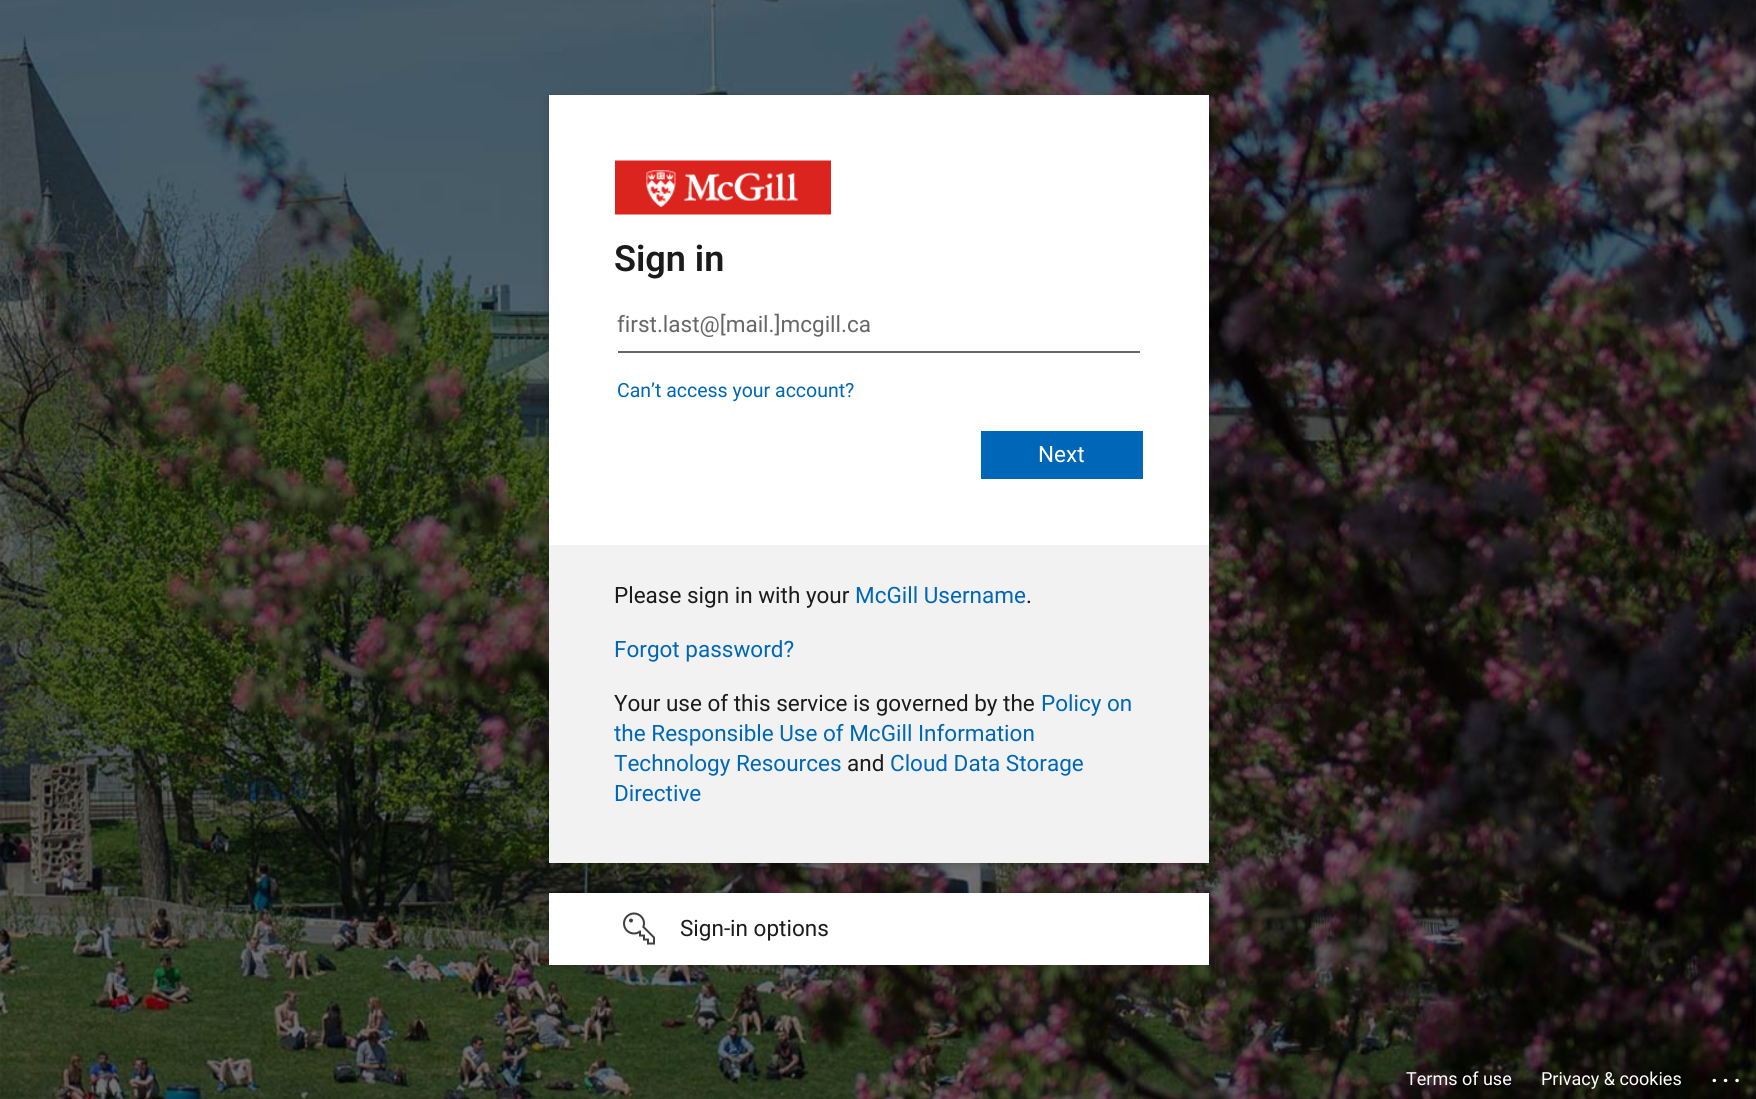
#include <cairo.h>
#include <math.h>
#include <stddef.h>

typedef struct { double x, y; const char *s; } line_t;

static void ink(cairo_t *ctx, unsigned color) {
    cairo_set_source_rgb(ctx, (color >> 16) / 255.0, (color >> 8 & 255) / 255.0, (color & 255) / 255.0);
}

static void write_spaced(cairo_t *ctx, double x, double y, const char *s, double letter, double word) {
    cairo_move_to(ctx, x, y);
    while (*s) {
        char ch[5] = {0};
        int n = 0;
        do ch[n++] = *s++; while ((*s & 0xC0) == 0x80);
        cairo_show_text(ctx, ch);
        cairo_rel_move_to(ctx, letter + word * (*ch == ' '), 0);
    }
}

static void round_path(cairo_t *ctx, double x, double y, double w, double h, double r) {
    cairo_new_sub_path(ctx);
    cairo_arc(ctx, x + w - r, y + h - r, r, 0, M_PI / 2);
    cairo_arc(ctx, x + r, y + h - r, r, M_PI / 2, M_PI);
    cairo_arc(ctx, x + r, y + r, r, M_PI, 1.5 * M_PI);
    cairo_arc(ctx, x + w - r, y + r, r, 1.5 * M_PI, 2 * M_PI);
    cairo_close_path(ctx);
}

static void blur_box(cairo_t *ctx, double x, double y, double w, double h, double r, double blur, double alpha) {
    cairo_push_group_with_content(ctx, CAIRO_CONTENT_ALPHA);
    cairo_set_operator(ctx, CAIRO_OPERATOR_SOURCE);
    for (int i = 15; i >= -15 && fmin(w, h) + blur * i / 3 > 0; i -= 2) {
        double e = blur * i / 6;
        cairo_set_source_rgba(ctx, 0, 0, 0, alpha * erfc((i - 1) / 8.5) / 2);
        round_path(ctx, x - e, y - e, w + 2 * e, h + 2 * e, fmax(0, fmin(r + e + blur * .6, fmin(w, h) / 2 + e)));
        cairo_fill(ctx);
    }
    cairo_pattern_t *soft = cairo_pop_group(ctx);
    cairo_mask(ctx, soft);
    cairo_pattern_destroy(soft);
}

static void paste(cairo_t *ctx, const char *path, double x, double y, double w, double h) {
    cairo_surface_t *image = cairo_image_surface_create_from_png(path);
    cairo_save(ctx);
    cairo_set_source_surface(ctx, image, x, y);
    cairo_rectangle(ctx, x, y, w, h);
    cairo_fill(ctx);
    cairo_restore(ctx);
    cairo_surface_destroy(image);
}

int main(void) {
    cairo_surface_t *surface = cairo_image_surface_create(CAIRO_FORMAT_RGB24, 1756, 1099);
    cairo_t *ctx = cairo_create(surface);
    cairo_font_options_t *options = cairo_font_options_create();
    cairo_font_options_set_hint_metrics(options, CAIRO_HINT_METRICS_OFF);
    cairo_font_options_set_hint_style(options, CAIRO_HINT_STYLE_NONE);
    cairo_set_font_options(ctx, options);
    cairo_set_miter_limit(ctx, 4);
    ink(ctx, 0xFFFFFF);
    cairo_paint(ctx);
    paste(ctx, "media/1.png", 0, 0, 1756, 1099);
    ink(ctx, 0x000000);
    blur_box(ctx, 549, 98, 660, 768, 0, 4.5, 0.2);
    ink(ctx, 0xFFFFFF);
    cairo_rectangle(ctx, 549, 95, 660, 450);
    cairo_fill(ctx);
    paste(ctx, "media/2.png", 615, 160, 216, 55);
    cairo_select_font_face(ctx, "Roboto SemiBold", CAIRO_FONT_SLANT_NORMAL, CAIRO_FONT_WEIGHT_NORMAL);
    cairo_set_font_size(ctx, 36);
    ink(ctx, 0x1B1B1B);
    cairo_move_to(ctx, 614, 271);
    cairo_show_text(ctx, "Sign in");
    ink(ctx, 0x666666);
    cairo_rectangle(ctx, 618, 351, 522, 2);
    cairo_fill(ctx);
    cairo_select_font_face(ctx, "Roboto", CAIRO_FONT_SLANT_NORMAL, CAIRO_FONT_WEIGHT_NORMAL);
    cairo_set_font_size(ctx, 22.5);
    cairo_move_to(ctx, 617, 332);
    cairo_show_text(ctx, "first.last@[mail.]mcgill.ca");
    cairo_set_font_size(ctx, 19.5);
    ink(ctx, 0x0067B8);
    cairo_move_to(ctx, 617, 397);
    cairo_show_text(ctx, "Can’t access your account?");
    cairo_rectangle(ctx, 981, 431, 162, 48);
    cairo_fill(ctx);
    cairo_set_font_size(ctx, 22.5);
    ink(ctx, 0xFFFFFF);
    cairo_move_to(ctx, 1038, 462);
    cairo_show_text(ctx, "Next");
    ink(ctx, 0xF2F2F2);
    cairo_rectangle(ctx, 549, 545, 660, 318);
    cairo_fill(ctx);
    ink(ctx, 0x1B1B1B);
    cairo_move_to(ctx, 614, 603);
    cairo_show_text(ctx, "Please sign in with your");
    ink(ctx, 0x0067B8);
    cairo_move_to(ctx, 855, 603);
    cairo_show_text(ctx, "McGill Username");
    ink(ctx, 0x1B1B1B);
    cairo_move_to(ctx, 1026, 603);
    cairo_show_text(ctx, ".");
    ink(ctx, 0x0067B8);
    cairo_move_to(ctx, 614, 657);
    cairo_show_text(ctx, "Forgot password?");
    ink(ctx, 0x1B1B1B);
    cairo_move_to(ctx, 614, 711);
    cairo_show_text(ctx, "Your use of this service is governed by the");
    ink(ctx, 0x0067B8);
    {
        static const line_t items[] = {
            {1041, 711, "Policy on"},
            {614, 741, "the Responsible Use of McGill Information"},
            {614, 771, "Technology Resources"},
        };
        for (size_t i = 0; i < sizeof items / sizeof *items; i++) {
            cairo_move_to(ctx, items[i].x, items[i].y);
            cairo_show_text(ctx, items[i].s);
        }
    }
    ink(ctx, 0x1B1B1B);
    cairo_move_to(ctx, 847, 771);
    cairo_show_text(ctx, "and");
    ink(ctx, 0x0067B8);
    cairo_move_to(ctx, 890, 771);
    cairo_show_text(ctx, "Cloud Data Storage");
    cairo_move_to(ctx, 614, 801);
    cairo_show_text(ctx, "Directive");
    ink(ctx, 0x000000);
    blur_box(ctx, 549, 896, 660, 72, 0, 4.5, 0.2);
    ink(ctx, 0xFFFFFF);
    cairo_rectangle(ctx, 549, 893, 660, 72);
    cairo_fill(ctx);
    paste(ctx, "media/3.png", 623, 912, 32, 33);
    ink(ctx, 0x1B1B1B);
    cairo_move_to(ctx, 680, 936);
    cairo_show_text(ctx, "Sign-in options");
    cairo_set_font_size(ctx, 18);
    ink(ctx, 0xFFFFFF);
    cairo_move_to(ctx, 1406, 1085);
    cairo_show_text(ctx, "Terms of use");
    cairo_move_to(ctx, 1541, 1085);
    cairo_show_text(ctx, "Privacy & cookies");
    cairo_select_font_face(ctx, "Roboto SemiBold", CAIRO_FONT_SLANT_NORMAL, CAIRO_FONT_WEIGHT_NORMAL);
    cairo_set_font_size(ctx, 24);
    write_spaced(ctx, 1711, 1082, "...", 4.5, 0);
    cairo_surface_write_to_png(surface, "image.png");
    cairo_font_options_destroy(options);
    cairo_destroy(ctx);
    cairo_surface_destroy(surface);
    return 0;
}
